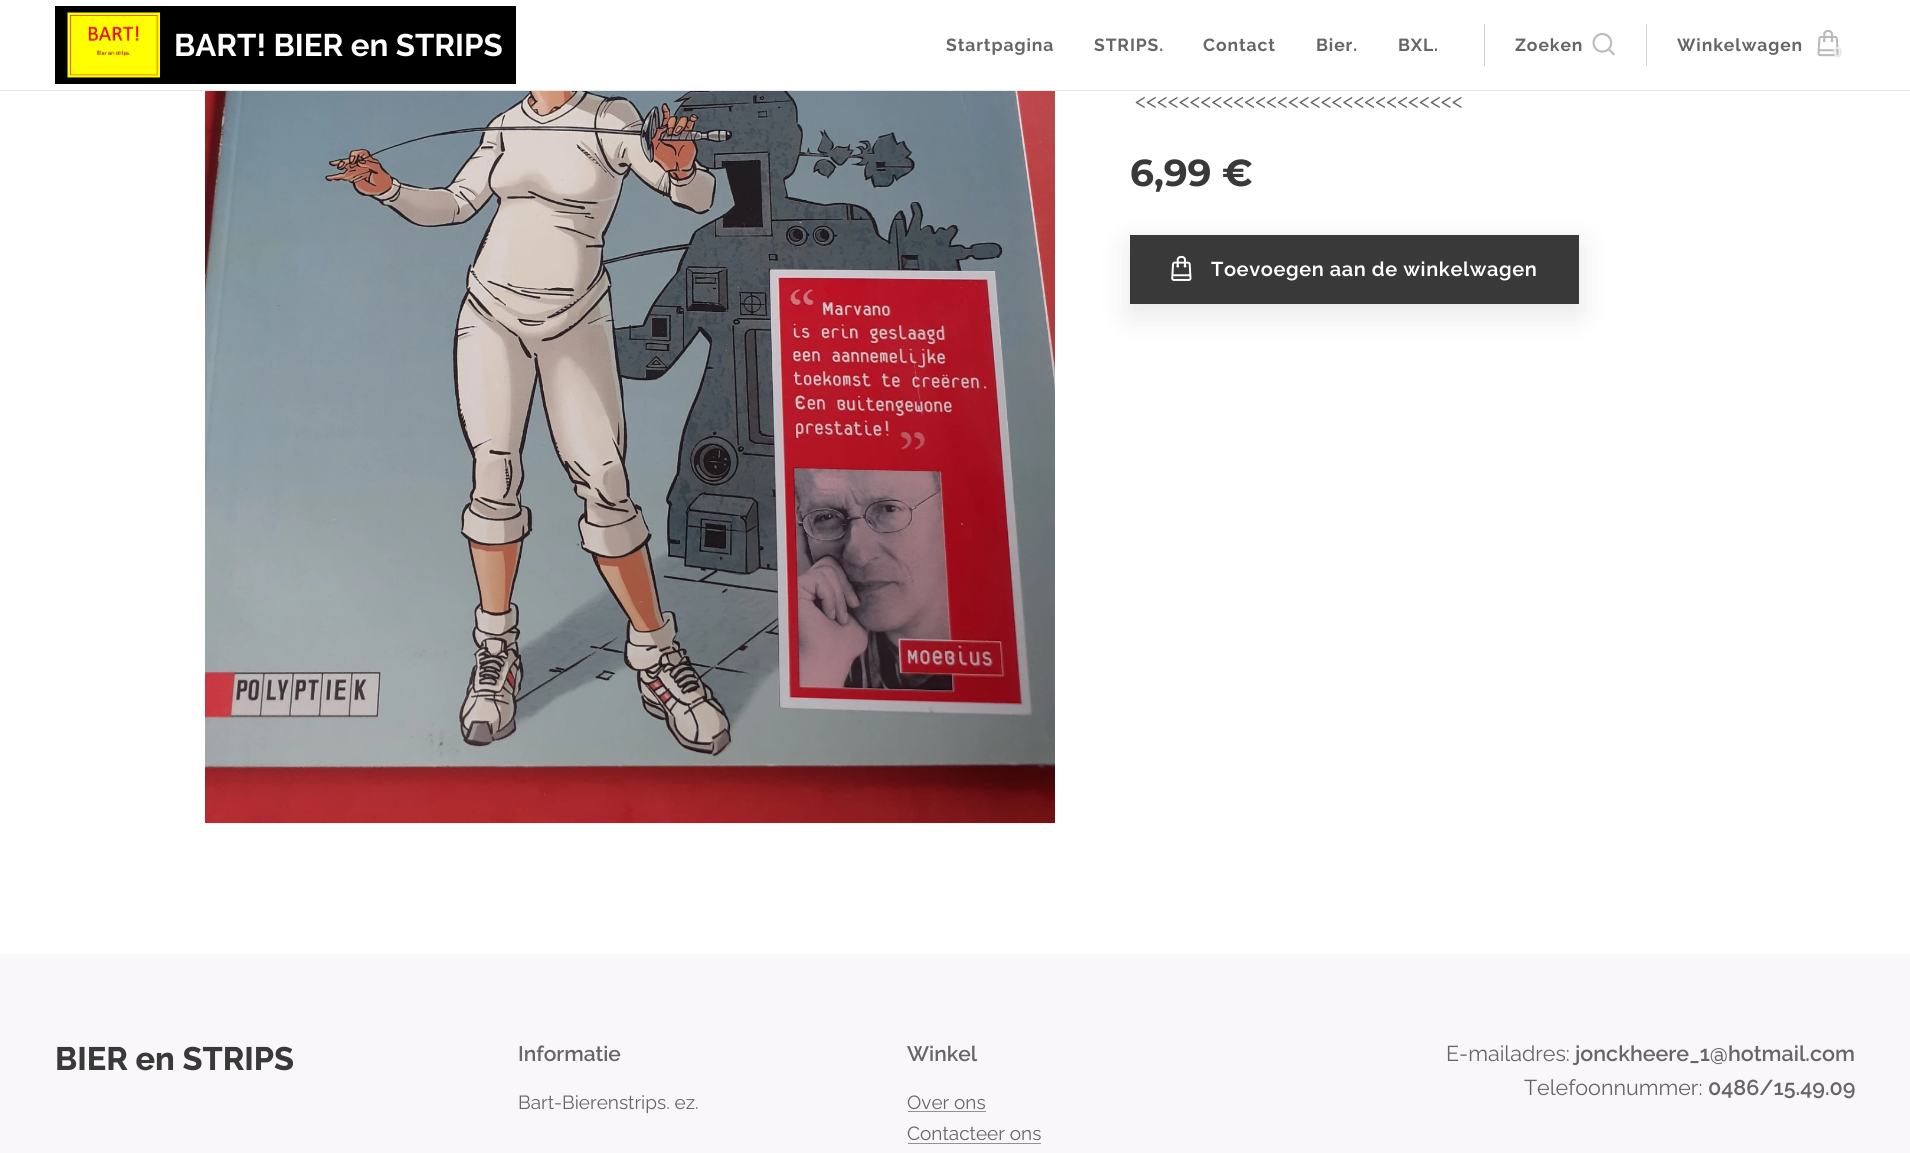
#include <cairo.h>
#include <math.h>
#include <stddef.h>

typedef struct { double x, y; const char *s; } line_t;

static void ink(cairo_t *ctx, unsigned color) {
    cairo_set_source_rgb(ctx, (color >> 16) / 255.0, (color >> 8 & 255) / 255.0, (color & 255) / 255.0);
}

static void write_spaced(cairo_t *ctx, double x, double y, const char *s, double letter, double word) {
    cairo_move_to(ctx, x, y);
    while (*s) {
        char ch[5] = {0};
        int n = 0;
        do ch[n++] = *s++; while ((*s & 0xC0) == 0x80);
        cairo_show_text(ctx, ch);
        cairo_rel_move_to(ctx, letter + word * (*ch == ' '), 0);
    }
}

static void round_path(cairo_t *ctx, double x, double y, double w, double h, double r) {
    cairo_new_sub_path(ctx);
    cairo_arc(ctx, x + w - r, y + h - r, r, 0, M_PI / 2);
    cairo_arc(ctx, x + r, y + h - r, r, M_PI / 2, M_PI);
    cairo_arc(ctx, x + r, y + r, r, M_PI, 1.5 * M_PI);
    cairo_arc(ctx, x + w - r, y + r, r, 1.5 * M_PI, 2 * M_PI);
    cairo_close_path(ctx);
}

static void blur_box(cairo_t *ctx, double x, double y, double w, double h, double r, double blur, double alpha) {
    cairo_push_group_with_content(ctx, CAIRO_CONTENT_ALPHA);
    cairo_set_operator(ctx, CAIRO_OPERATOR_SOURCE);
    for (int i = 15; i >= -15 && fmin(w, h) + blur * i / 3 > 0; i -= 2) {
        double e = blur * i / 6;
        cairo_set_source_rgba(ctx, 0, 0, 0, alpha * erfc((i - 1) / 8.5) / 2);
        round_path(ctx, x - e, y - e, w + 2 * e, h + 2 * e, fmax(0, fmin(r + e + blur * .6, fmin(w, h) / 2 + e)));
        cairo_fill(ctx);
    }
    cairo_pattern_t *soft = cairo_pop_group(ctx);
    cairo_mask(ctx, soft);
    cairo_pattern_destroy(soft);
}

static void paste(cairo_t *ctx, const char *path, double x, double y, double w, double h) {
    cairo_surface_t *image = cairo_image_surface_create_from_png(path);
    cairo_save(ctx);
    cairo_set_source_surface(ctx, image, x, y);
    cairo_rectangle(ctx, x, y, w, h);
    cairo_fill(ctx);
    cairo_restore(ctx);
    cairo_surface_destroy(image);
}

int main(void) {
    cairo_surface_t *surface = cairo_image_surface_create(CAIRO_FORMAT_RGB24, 1910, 1153);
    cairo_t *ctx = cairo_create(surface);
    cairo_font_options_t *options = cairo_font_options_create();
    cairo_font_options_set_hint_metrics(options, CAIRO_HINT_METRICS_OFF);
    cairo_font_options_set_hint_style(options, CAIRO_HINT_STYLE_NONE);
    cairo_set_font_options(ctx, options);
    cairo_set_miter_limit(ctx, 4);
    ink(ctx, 0xFFFFFF);
    cairo_paint(ctx);
    ink(ctx, 0xE8E8E8);
    cairo_rectangle(ctx, 0, 90, 1910, 1);
    cairo_fill(ctx);
    ink(ctx, 0x000000);
    cairo_rectangle(ctx, 55, 6, 461, 78);
    cairo_fill(ctx);
    paste(ctx, "media/1.png", 67, 12, 93, 66);
    cairo_select_font_face(ctx, "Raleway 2", CAIRO_FONT_SLANT_NORMAL, CAIRO_FONT_WEIGHT_BOLD);
    cairo_set_font_size(ctx, 31.25);
    ink(ctx, 0xFFFFFF);
    cairo_move_to(ctx, 174, 56);
    cairo_show_text(ctx, "BART! BIER en STRIPS");
    cairo_set_font_size(ctx, 17.5);
    ink(ctx, 0x666666);
    {
        static const line_t items[] = {
            {946, 51, "Startpagina"},
            {1094, 51, "STRIPS."},
            {1203, 51, "Contact"},
            {1316, 51, "Bier."},
            {1398, 51, "BXL."},
        };
        for (size_t i = 0; i < sizeof items / sizeof *items; i++) {
            write_spaced(ctx, items[i].x, items[i].y, items[i].s, 0.9, 0);
        }
    }
    ink(ctx, 0xD1D1D1);
    cairo_rectangle(ctx, 1484, 24, 1, 42);
    cairo_fill(ctx);
    ink(ctx, 0x666666);
    write_spaced(ctx, 1515, 51, "Zoeken", 0.9, 0);
    paste(ctx, "media/2.png", 1592, 33, 23, 23);
    ink(ctx, 0xD1D1D1);
    cairo_rectangle(ctx, 1646, 24, 1, 42);
    cairo_fill(ctx);
    ink(ctx, 0x666666);
    write_spaced(ctx, 1677, 51, "Winkelwagen", 0.9, 0);
    paste(ctx, "media/3.png", 1817, 29, 22, 28);
    cairo_select_font_face(ctx, "Montserrat", CAIRO_FONT_SLANT_NORMAL, CAIRO_FONT_WEIGHT_BOLD);
    cairo_set_font_size(ctx, 14);
    ink(ctx, 0xEAEAEA);
    cairo_move_to(ctx, 1833, 57);
    cairo_show_text(ctx, "0");
    paste(ctx, "media/4.png", 205, 91, 850, 733);
    cairo_select_font_face(ctx, "Raleway", CAIRO_FONT_SLANT_NORMAL, CAIRO_FONT_WEIGHT_NORMAL);
    cairo_set_font_size(ctx, 21.5);
    ink(ctx, 0x666666);
    cairo_move_to(ctx, 1135, 108);
    cairo_show_text(ctx, "<<<<<<<<<<<<<<<<<<<<<<<<<<<<<<");
    cairo_select_font_face(ctx, "Montserrat", CAIRO_FONT_SLANT_NORMAL, CAIRO_FONT_WEIGHT_BOLD);
    cairo_set_font_size(ctx, 37.5);
    ink(ctx, 0x393939);
    cairo_move_to(ctx, 1130, 186);
    cairo_show_text(ctx, "6,99 €");
    ink(ctx, 0x000000);
    blur_box(ctx, 1130, 245, 449, 69, 0, 15.5, 0.1);
    ink(ctx, 0x393939);
    cairo_rectangle(ctx, 1130, 235, 449, 69);
    cairo_fill(ctx);
    paste(ctx, "media/5.png", 1171, 255, 21, 26);
    cairo_select_font_face(ctx, "Raleway 2 SemiBold", CAIRO_FONT_SLANT_NORMAL, CAIRO_FONT_WEIGHT_NORMAL);
    cairo_set_font_size(ctx, 20);
    ink(ctx, 0xFFFFFF);
    write_spaced(ctx, 1211, 276, "Toevoegen aan de winkelwagen", 0.6, 0);
    ink(ctx, 0xF9F7FA);
    cairo_rectangle(ctx, 0, 954, 1910, 199);
    cairo_fill(ctx);
    cairo_select_font_face(ctx, "Raleway", CAIRO_FONT_SLANT_NORMAL, CAIRO_FONT_WEIGHT_BOLD);
    cairo_set_font_size(ctx, 32.5);
    ink(ctx, 0x393939);
    cairo_move_to(ctx, 55, 1070);
    cairo_show_text(ctx, "BIER en STRIPS");
    cairo_select_font_face(ctx, "Raleway SemiBold", CAIRO_FONT_SLANT_NORMAL, CAIRO_FONT_WEIGHT_NORMAL);
    cairo_set_font_size(ctx, 21);
    ink(ctx, 0x666666);
    cairo_move_to(ctx, 518, 1061);
    cairo_show_text(ctx, "Informatie");
    cairo_select_font_face(ctx, "Raleway", CAIRO_FONT_SLANT_NORMAL, CAIRO_FONT_WEIGHT_NORMAL);
    cairo_set_font_size(ctx, 19);
    cairo_move_to(ctx, 518, 1109);
    cairo_show_text(ctx, "Bart-Bierenstrips. ez.");
    cairo_select_font_face(ctx, "Raleway SemiBold", CAIRO_FONT_SLANT_NORMAL, CAIRO_FONT_WEIGHT_NORMAL);
    cairo_set_font_size(ctx, 21);
    cairo_move_to(ctx, 907, 1061);
    cairo_show_text(ctx, "Winkel");
    cairo_select_font_face(ctx, "Raleway", CAIRO_FONT_SLANT_NORMAL, CAIRO_FONT_WEIGHT_NORMAL);
    cairo_set_font_size(ctx, 19);
    cairo_move_to(ctx, 907, 1109);
    cairo_show_text(ctx, "Over ons");
    ink(ctx, 0x929292);
    cairo_rectangle(ctx, 908, 1111, 78, 1);
    cairo_fill(ctx);
    ink(ctx, 0x666666);
    cairo_move_to(ctx, 907, 1140);
    cairo_show_text(ctx, "Contacteer ons");
    ink(ctx, 0x929292);
    cairo_rectangle(ctx, 908, 1143, 133, 1);
    cairo_fill(ctx);
    cairo_set_font_size(ctx, 21.5);
    ink(ctx, 0x666666);
    cairo_move_to(ctx, 1446, 1061);
    cairo_show_text(ctx, "E-mailadres:");
    cairo_select_font_face(ctx, "Raleway SemiBold", CAIRO_FONT_SLANT_NORMAL, CAIRO_FONT_WEIGHT_NORMAL);
    cairo_move_to(ctx, 1575, 1061);
    cairo_show_text(ctx, "jonckheere_1@hotmail.com");
    cairo_select_font_face(ctx, "Raleway", CAIRO_FONT_SLANT_NORMAL, CAIRO_FONT_WEIGHT_NORMAL);
    cairo_move_to(ctx, 1524, 1095);
    cairo_show_text(ctx, "Telefoonnummer:");
    cairo_select_font_face(ctx, "Raleway SemiBold", CAIRO_FONT_SLANT_NORMAL, CAIRO_FONT_WEIGHT_NORMAL);
    cairo_move_to(ctx, 1708, 1095);
    cairo_show_text(ctx, "0486/15.49.09");
    cairo_surface_write_to_png(surface, "image.png");
    cairo_font_options_destroy(options);
    cairo_destroy(ctx);
    cairo_surface_destroy(surface);
    return 0;
}
